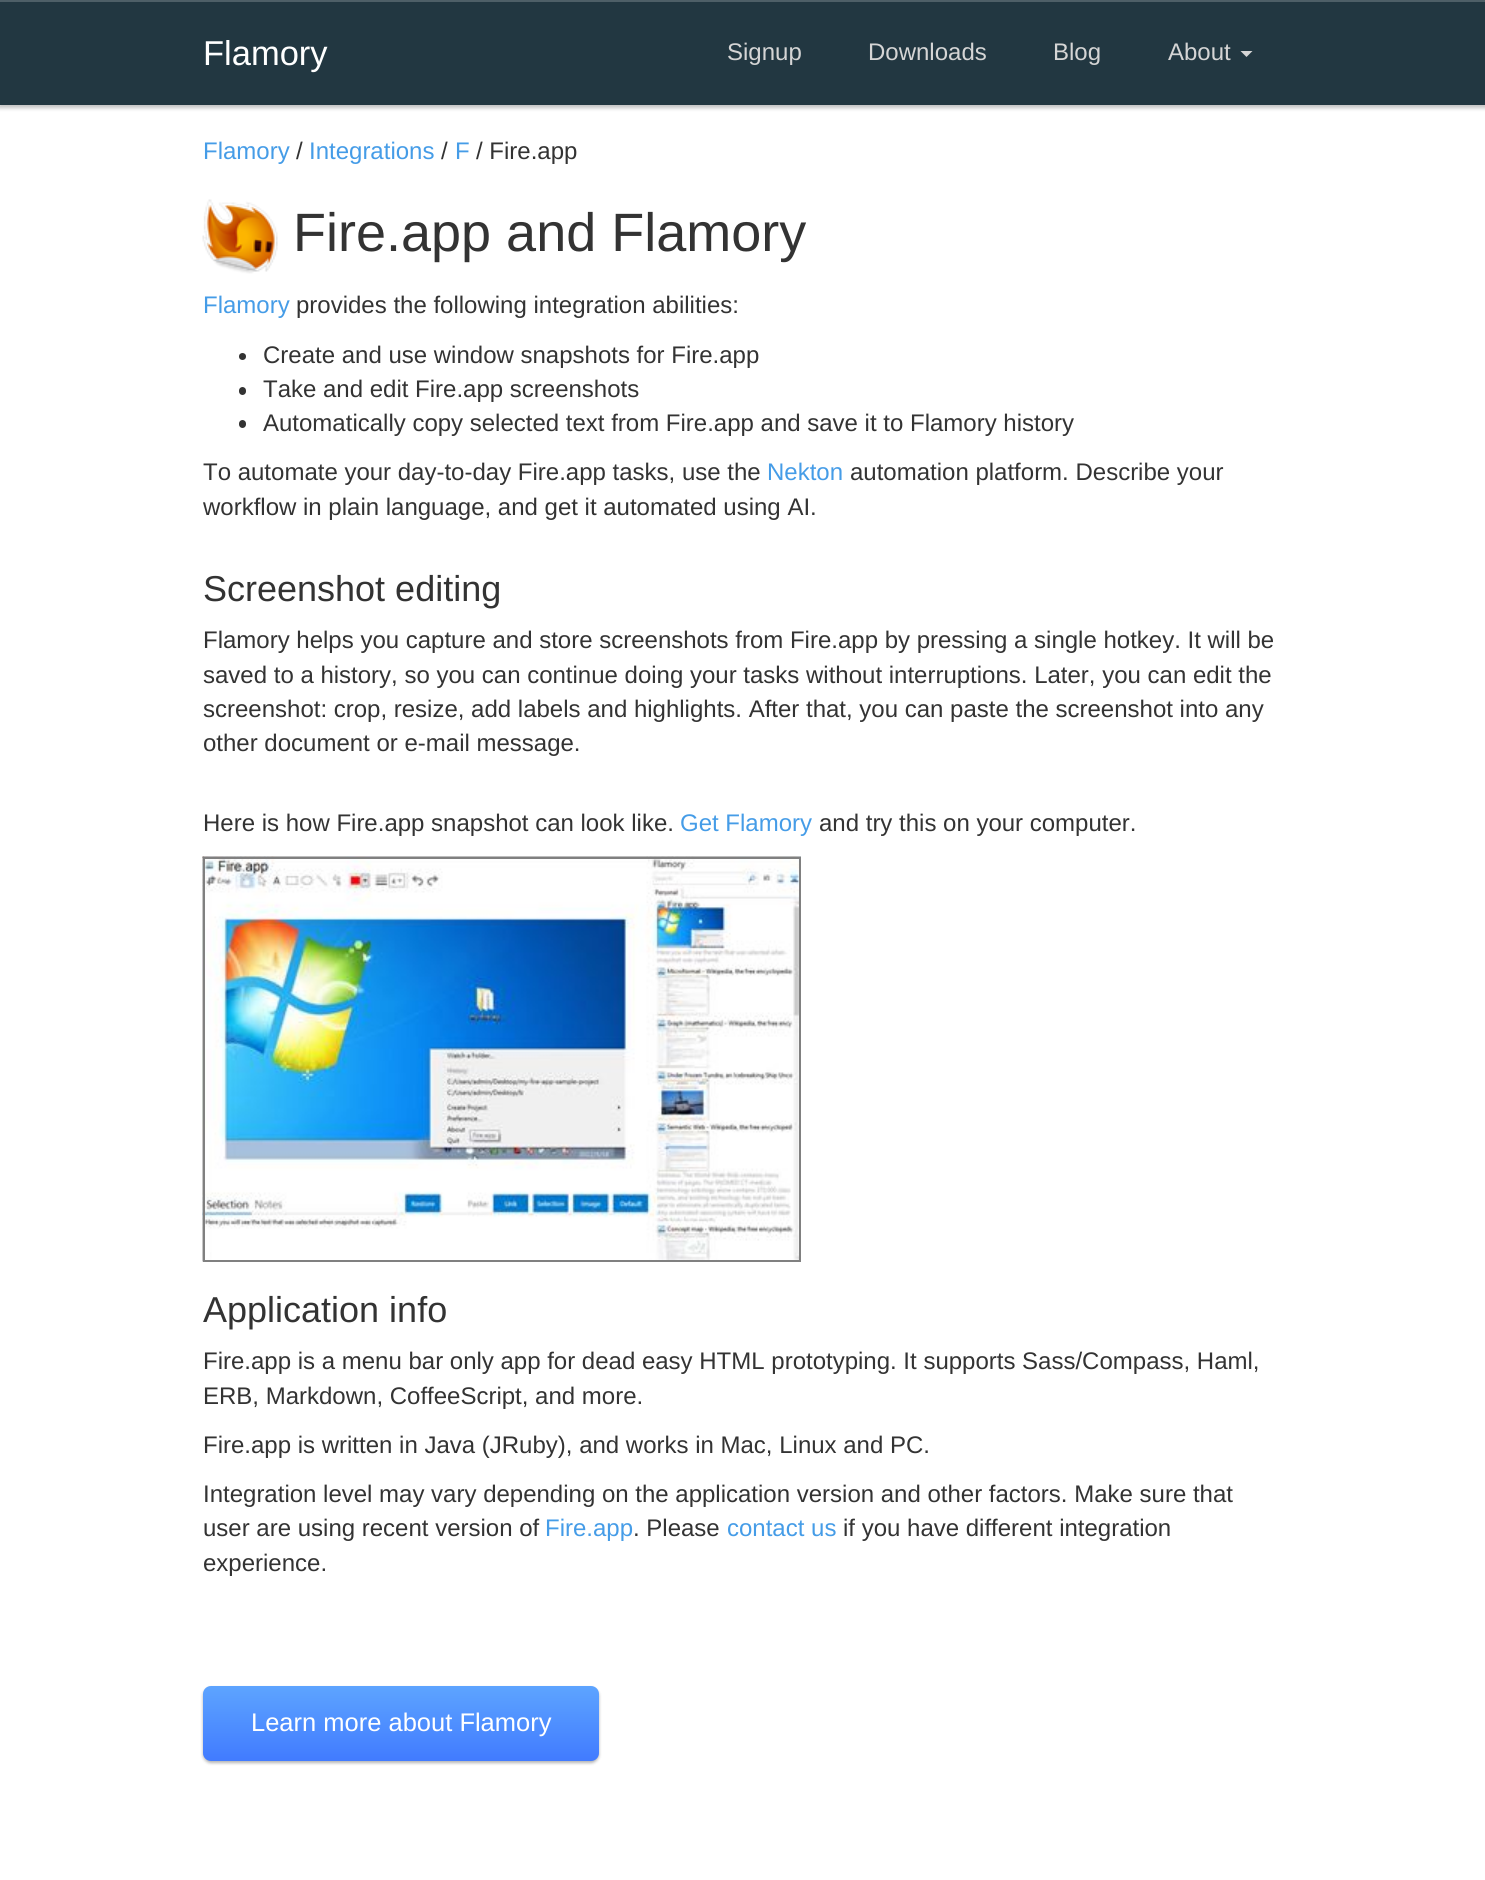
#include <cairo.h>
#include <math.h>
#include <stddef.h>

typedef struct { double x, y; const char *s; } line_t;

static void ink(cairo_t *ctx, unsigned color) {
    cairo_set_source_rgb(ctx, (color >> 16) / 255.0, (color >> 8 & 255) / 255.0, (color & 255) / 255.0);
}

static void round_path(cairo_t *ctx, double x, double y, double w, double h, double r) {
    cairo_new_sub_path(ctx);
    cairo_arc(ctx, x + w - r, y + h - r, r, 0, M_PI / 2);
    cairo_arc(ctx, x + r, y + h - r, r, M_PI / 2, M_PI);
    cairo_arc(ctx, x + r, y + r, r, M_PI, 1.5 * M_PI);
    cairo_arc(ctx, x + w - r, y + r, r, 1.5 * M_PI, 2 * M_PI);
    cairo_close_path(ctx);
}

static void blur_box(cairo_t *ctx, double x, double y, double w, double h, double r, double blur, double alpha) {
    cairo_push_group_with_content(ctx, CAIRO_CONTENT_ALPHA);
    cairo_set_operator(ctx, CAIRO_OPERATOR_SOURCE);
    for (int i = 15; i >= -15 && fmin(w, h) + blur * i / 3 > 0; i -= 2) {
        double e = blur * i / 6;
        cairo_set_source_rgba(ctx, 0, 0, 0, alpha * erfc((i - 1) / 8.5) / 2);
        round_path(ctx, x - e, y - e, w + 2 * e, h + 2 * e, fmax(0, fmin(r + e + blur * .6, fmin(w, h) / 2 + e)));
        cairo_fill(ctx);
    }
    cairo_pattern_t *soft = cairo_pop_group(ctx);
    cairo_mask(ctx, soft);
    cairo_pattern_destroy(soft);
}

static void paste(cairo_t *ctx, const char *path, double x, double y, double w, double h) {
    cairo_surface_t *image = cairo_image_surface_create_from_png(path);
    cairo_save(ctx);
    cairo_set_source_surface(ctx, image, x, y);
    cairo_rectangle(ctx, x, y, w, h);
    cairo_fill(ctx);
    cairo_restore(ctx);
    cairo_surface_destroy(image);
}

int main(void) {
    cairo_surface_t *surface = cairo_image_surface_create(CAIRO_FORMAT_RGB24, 1485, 1880);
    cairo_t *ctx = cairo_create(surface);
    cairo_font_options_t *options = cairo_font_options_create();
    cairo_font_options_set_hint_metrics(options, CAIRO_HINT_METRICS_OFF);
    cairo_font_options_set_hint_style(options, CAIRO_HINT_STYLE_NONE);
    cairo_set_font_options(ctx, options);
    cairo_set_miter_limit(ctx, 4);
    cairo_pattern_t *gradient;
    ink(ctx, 0xFFFFFF);
    cairo_paint(ctx);
    ink(ctx, 0x2E2E2E);
    blur_box(ctx, -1, 0, 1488, 108, 0, 2, 0.3);
    ink(ctx, 0x223741);
    cairo_rectangle(ctx, 0, 2, 1485, 103);
    cairo_fill(ctx);
    ink(ctx, 0x4E5F67);
    cairo_rectangle(ctx, 0, 0, 1485, 2);
    cairo_fill(ctx);
    cairo_select_font_face(ctx, "Liberation Sans", CAIRO_FONT_SLANT_NORMAL, CAIRO_FONT_WEIGHT_NORMAL);
    cairo_set_font_size(ctx, 34.5);
    ink(ctx, 0xFFFFFF);
    cairo_move_to(ctx, 203, 65);
    cairo_show_text(ctx, "Flamory");
    cairo_set_font_size(ctx, 24);
    ink(ctx, 0xD5D5D5);
    {
        static const line_t items[] = {
            {727, 60, "Signup"},
            {868, 60, "Downloads"},
            {1053, 60, "Blog"},
            {1168, 60, "About"},
        };
        for (size_t i = 0; i < sizeof items / sizeof *items; i++) {
            cairo_move_to(ctx, items[i].x, items[i].y);
            cairo_show_text(ctx, items[i].s);
        }
    }
    cairo_new_path(ctx);
    cairo_move_to(ctx, 1240.5, 51);
    cairo_line_to(ctx, 1252.5, 51);
    cairo_line_to(ctx, 1246.5, 57);
    cairo_close_path(ctx);
    cairo_fill(ctx);
    ink(ctx, 0x459CE7);
    cairo_move_to(ctx, 203, 159);
    cairo_show_text(ctx, "Flamory");
    ink(ctx, 0x333333);
    cairo_move_to(ctx, 296, 159);
    cairo_show_text(ctx, "/");
    ink(ctx, 0x459CE7);
    cairo_move_to(ctx, 309, 159);
    cairo_show_text(ctx, "Integrations");
    ink(ctx, 0x333333);
    cairo_move_to(ctx, 441, 159);
    cairo_show_text(ctx, "/");
    ink(ctx, 0x459CE7);
    cairo_move_to(ctx, 455, 159);
    cairo_show_text(ctx, "F");
    ink(ctx, 0x333333);
    cairo_move_to(ctx, 476, 159);
    cairo_show_text(ctx, "/ Fire.app");
    paste(ctx, "media/1.png", 202, 199, 76, 75);
    cairo_set_font_size(ctx, 54);
    cairo_move_to(ctx, 293, 251);
    cairo_show_text(ctx, "Fire.app and Flamory");
    cairo_set_font_size(ctx, 24);
    ink(ctx, 0x459CE7);
    cairo_move_to(ctx, 203, 313);
    cairo_show_text(ctx, "Flamory");
    ink(ctx, 0x333333);
    cairo_move_to(ctx, 296, 313);
    cairo_show_text(ctx, "provides the following integration abilities:");
    cairo_new_path(ctx);
    cairo_arc(ctx, 242.5, 356.5, 3.5, 0, 2 * M_PI);
    cairo_fill(ctx);
    cairo_move_to(ctx, 263, 363);
    cairo_show_text(ctx, "Create and use window snapshots for Fire.app");
    round_path(ctx, 239, 387, 7, 8, 3.5);
    cairo_fill(ctx);
    cairo_move_to(ctx, 263, 397);
    cairo_show_text(ctx, "Take and edit Fire.app screenshots");
    round_path(ctx, 239, 420, 7, 8, 3.5);
    cairo_fill(ctx);
    cairo_move_to(ctx, 263, 431);
    cairo_show_text(ctx, "Automatically copy selected text from Fire.app and save it to Flamory history");
    cairo_move_to(ctx, 203, 480);
    cairo_show_text(ctx, "To automate your day-to-day Fire.app tasks, use the");
    ink(ctx, 0x459CE7);
    cairo_move_to(ctx, 767, 480);
    cairo_show_text(ctx, "Nekton");
    ink(ctx, 0x333333);
    cairo_move_to(ctx, 850, 480);
    cairo_show_text(ctx, "automation platform. Describe your");
    cairo_move_to(ctx, 203, 515);
    cairo_show_text(ctx, "workflow in plain language, and get it automated using AI.");
    cairo_set_font_size(ctx, 36);
    cairo_move_to(ctx, 203, 601);
    cairo_show_text(ctx, "Screenshot editing");
    cairo_set_font_size(ctx, 24);
    {
        static const line_t items[] = {
            {203, 648, "Flamory helps you capture and store screenshots from Fire.app by pressing a single hotkey. It will be"},
            {203, 683, "saved to a history, so you can continue doing your tasks without interruptions. Later, you can edit the"},
            {203, 717, "screenshot: crop, resize, add labels and highlights. After that, you can paste the screenshot into any"},
            {203, 751, "other document or e-mail message."},
            {203, 831, "Here is how Fire.app snapshot can look like."},
        };
        for (size_t i = 0; i < sizeof items / sizeof *items; i++) {
            cairo_move_to(ctx, items[i].x, items[i].y);
            cairo_show_text(ctx, items[i].s);
        }
    }
    ink(ctx, 0x459CE7);
    cairo_move_to(ctx, 680, 831);
    cairo_show_text(ctx, "Get Flamory");
    ink(ctx, 0x333333);
    cairo_move_to(ctx, 819, 831);
    cairo_show_text(ctx, "and try this on your computer.");
    paste(ctx, "media/2.png", 202, 856, 599, 406);
    cairo_rectangle(ctx, 204, 858, 596, 403);
    ink(ctx, 0x808080);
    cairo_stroke(ctx);
    cairo_set_font_size(ctx, 36);
    ink(ctx, 0x333333);
    cairo_move_to(ctx, 203, 1322);
    cairo_show_text(ctx, "Application info");
    cairo_set_font_size(ctx, 24);
    {
        static const line_t items[] = {
            {203, 1369, "Fire.app is a menu bar only app for dead easy HTML prototyping. It supports Sass/Compass, Haml,"},
            {203, 1404, "ERB, Markdown, CoffeeScript, and more."},
            {203, 1453, "Fire.app is written in Java (JRuby), and works in Mac, Linux and PC."},
            {203, 1502, "Integration level may vary depending on the application version and other factors. Make sure that"},
            {203, 1536, "user are using recent version of"},
        };
        for (size_t i = 0; i < sizeof items / sizeof *items; i++) {
            cairo_move_to(ctx, items[i].x, items[i].y);
            cairo_show_text(ctx, items[i].s);
        }
    }
    ink(ctx, 0x459CE7);
    cairo_move_to(ctx, 545, 1536);
    cairo_show_text(ctx, "Fire.app");
    ink(ctx, 0x333333);
    cairo_move_to(ctx, 633, 1536);
    cairo_show_text(ctx, ". Please");
    ink(ctx, 0x459CE7);
    cairo_move_to(ctx, 727, 1536);
    cairo_show_text(ctx, "contact us");
    ink(ctx, 0x333333);
    cairo_move_to(ctx, 843, 1536);
    cairo_show_text(ctx, "if you have different integration");
    cairo_move_to(ctx, 203, 1571);
    cairo_show_text(ctx, "experience.");
    ink(ctx, 0x000000);
    blur_box(ctx, 203, 1688, 396, 75, 8, 1.5, 0.3);
    gradient = cairo_pattern_create_linear(401, 1686, 401, 1761);
    cairo_pattern_add_color_stop_rgba(gradient, 0, 0.365, 0.643, 1, 1);
    cairo_pattern_add_color_stop_rgba(gradient, 1, 0.255, 0.482, 1, 1);
    cairo_set_source(ctx, gradient);
    cairo_pattern_destroy(gradient);
    round_path(ctx, 203, 1686, 396, 75, 8);
    cairo_fill(ctx);
    cairo_set_font_size(ctx, 25.5);
    ink(ctx, 0xFFFFFF);
    cairo_move_to(ctx, 251, 1731);
    cairo_show_text(ctx, "Learn more about Flamory");
    cairo_surface_write_to_png(surface, "image.png");
    cairo_font_options_destroy(options);
    cairo_destroy(ctx);
    cairo_surface_destroy(surface);
    return 0;
}
